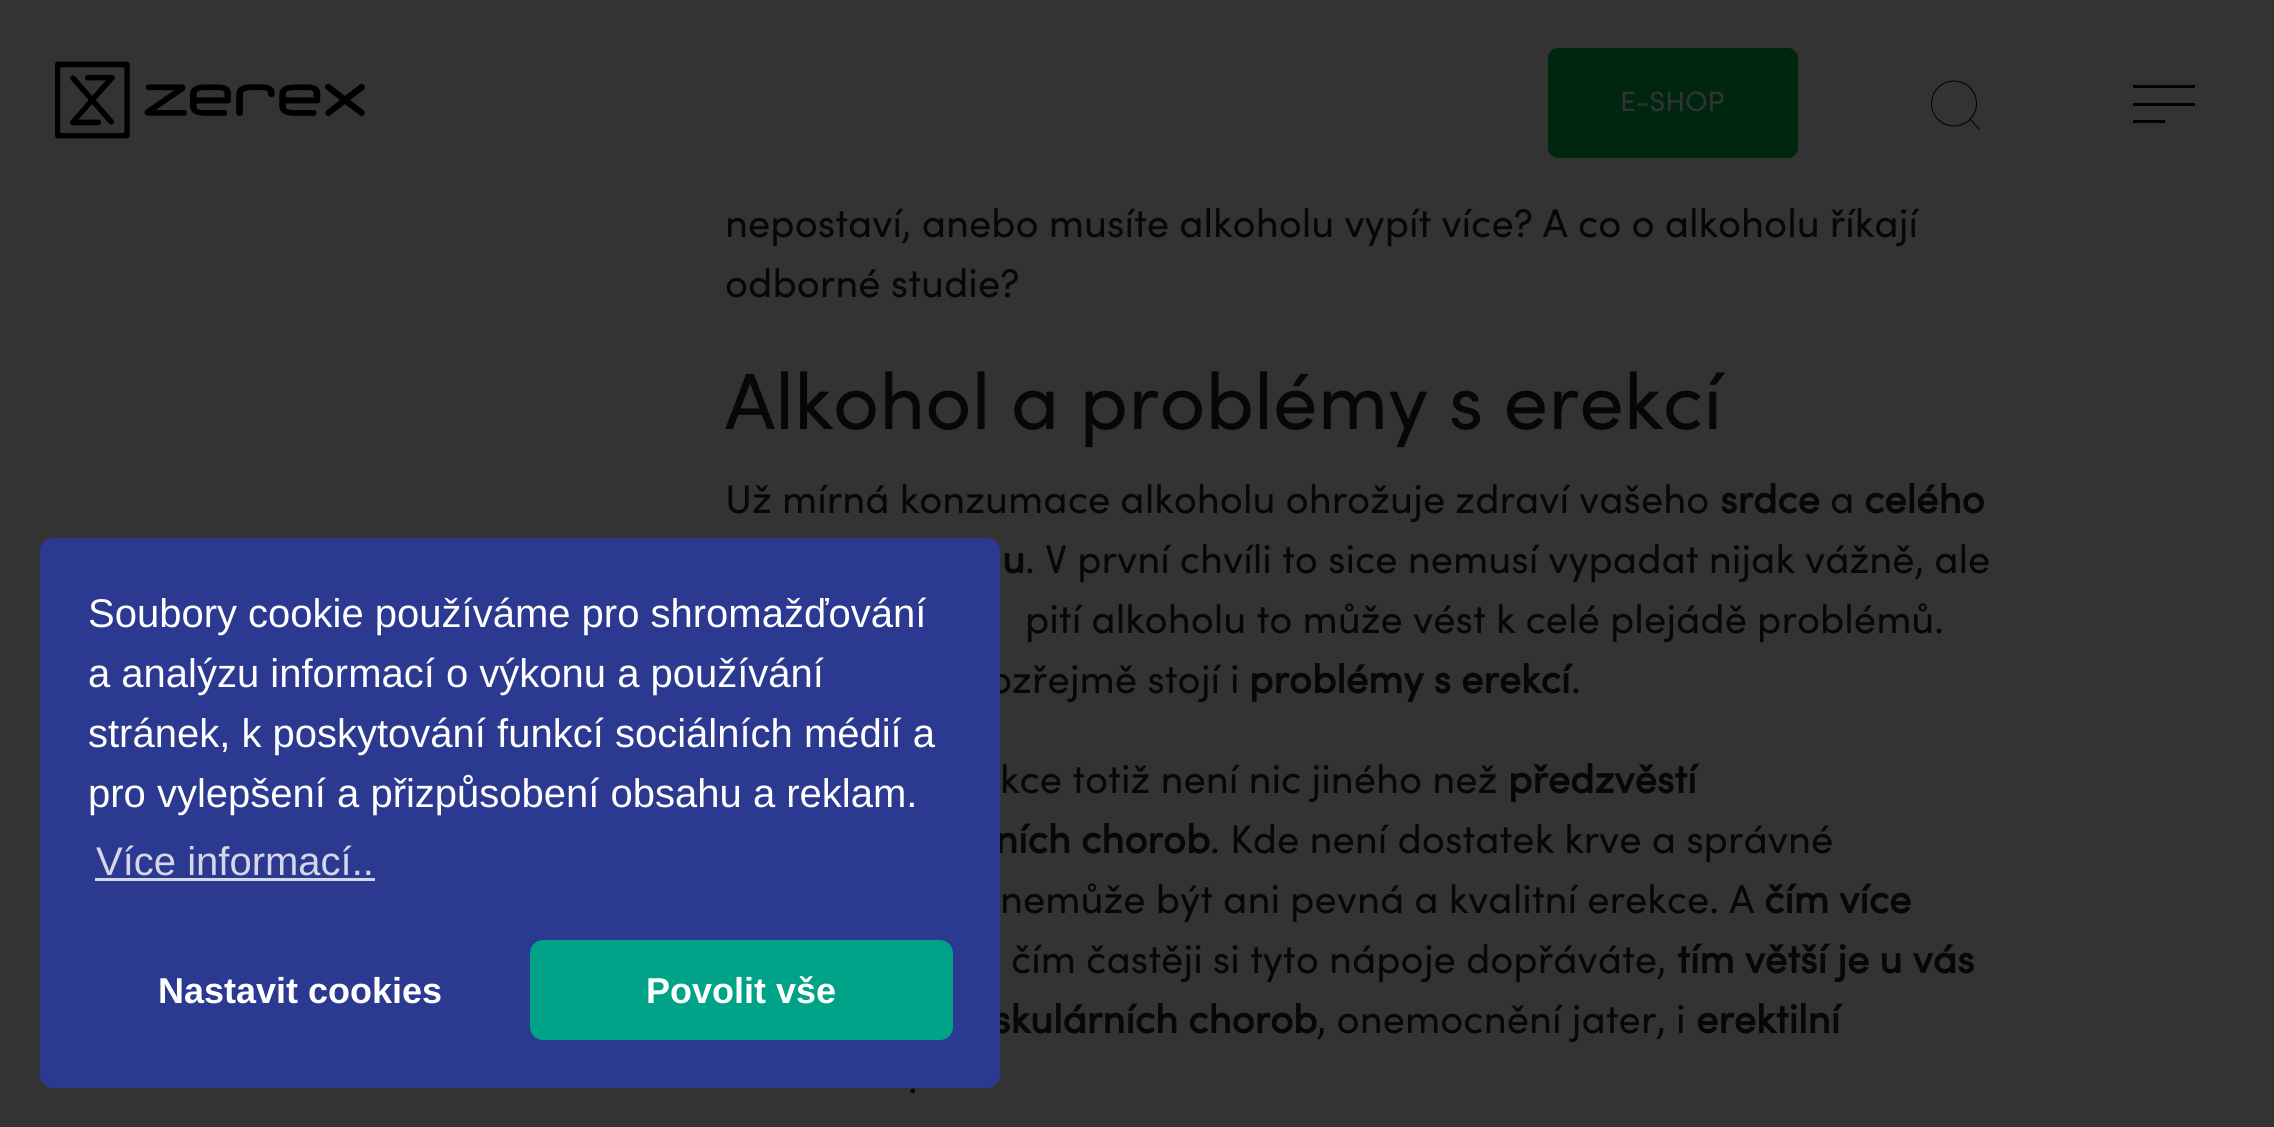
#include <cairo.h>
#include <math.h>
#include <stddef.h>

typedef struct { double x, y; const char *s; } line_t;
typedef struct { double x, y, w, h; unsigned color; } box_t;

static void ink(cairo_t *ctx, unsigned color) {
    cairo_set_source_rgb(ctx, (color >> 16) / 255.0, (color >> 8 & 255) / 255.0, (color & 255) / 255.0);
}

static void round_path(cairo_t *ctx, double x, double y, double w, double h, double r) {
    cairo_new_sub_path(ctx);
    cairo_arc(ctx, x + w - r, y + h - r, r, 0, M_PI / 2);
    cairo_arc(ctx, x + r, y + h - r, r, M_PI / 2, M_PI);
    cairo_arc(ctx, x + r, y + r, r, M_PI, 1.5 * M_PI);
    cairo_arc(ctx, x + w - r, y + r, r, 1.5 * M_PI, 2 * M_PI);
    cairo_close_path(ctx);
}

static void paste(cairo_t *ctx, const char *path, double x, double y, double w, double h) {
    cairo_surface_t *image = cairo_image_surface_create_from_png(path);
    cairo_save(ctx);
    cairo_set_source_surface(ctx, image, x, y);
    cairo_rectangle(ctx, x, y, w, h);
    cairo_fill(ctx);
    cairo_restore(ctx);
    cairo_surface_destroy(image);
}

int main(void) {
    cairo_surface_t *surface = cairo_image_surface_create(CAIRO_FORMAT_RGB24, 2274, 1127);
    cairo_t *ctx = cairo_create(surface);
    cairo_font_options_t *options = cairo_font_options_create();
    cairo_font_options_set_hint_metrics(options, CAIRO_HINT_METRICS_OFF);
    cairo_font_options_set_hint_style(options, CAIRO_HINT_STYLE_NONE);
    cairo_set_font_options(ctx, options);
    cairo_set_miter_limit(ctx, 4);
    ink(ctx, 0x333333);
    cairo_paint(ctx);
    cairo_select_font_face(ctx, "sofia", CAIRO_FONT_SLANT_NORMAL, CAIRO_FONT_WEIGHT_NORMAL);
    cairo_set_font_size(ctx, 40);
    ink(ctx, 0x070708);
    cairo_move_to(ctx, 989, 693);
    cairo_show_text(ctx, "ozřejmě stojí i");
    cairo_select_font_face(ctx, "sofia", CAIRO_FONT_SLANT_NORMAL, CAIRO_FONT_WEIGHT_BOLD);
    cairo_move_to(ctx, 995, 853);
    cairo_show_text(ctx, "ních chorob");
    cairo_move_to(ctx, 993, 1033);
    cairo_show_text(ctx, "skulárních chorob");
    ink(ctx, 0x2B3990);
    round_path(ctx, 40, 538, 960, 550, 13);
    cairo_fill(ctx);
    cairo_select_font_face(ctx, "Liberation Sans", CAIRO_FONT_SLANT_NORMAL, CAIRO_FONT_WEIGHT_NORMAL);
    ink(ctx, 0xFFFFFF);
    {
        static const line_t items[] = {
            {88, 627, "Soubory cookie používáme pro shromažďování"},
            {88, 687, "a analýzu informací o výkonu a používání"},
            {88, 747, "stránek, k poskytování funkcí sociálních médií a"},
            {88, 807, "pro vylepšení a přizpůsobení obsahu a reklam."},
        };
        for (size_t i = 0; i < sizeof items / sizeof *items; i++) {
            cairo_move_to(ctx, items[i].x, items[i].y);
            cairo_show_text(ctx, items[i].s);
        }
    }
    ink(ctx, 0xD5D7E9);
    cairo_move_to(ctx, 96, 875);
    cairo_show_text(ctx, "Více informací..");
    cairo_rectangle(ctx, 95, 878, 280, 3);
    cairo_fill(ctx);
    cairo_select_font_face(ctx, "Liberation Sans", CAIRO_FONT_SLANT_NORMAL, CAIRO_FONT_WEIGHT_BOLD);
    cairo_set_font_size(ctx, 36);
    ink(ctx, 0xFFFFFF);
    cairo_move_to(ctx, 158, 1003);
    cairo_show_text(ctx, "Nastavit cookies");
    ink(ctx, 0x00A388);
    round_path(ctx, 530, 940, 423, 100, 13);
    cairo_fill(ctx);
    ink(ctx, 0xFFFFFF);
    cairo_move_to(ctx, 646, 1003);
    cairo_show_text(ctx, "Povolit vše");
    paste(ctx, "media/1.png", 55, 61, 310, 78);
    ink(ctx, 0x002610);
    round_path(ctx, 1548, 48, 250, 110, 10);
    cairo_fill(ctx);
    cairo_select_font_face(ctx, "sofia", CAIRO_FONT_SLANT_NORMAL, CAIRO_FONT_WEIGHT_NORMAL);
    cairo_set_font_size(ctx, 28);
    ink(ctx, 0x333333);
    cairo_move_to(ctx, 1620, 111);
    cairo_show_text(ctx, "E-SHOP");
    cairo_new_path(ctx);
    cairo_arc(ctx, 1954, 103.5, 22.5, 0, 2 * M_PI);
    ink(ctx, 0x000000);
    cairo_set_line_width(ctx, 1);
    cairo_stroke(ctx);
    cairo_new_path(ctx);
    cairo_move_to(ctx, 1970.5, 119.5);
    cairo_line_to(ctx, 1979, 129);
    cairo_set_line_cap(ctx, CAIRO_LINE_CAP_ROUND);
    cairo_set_line_join(ctx, CAIRO_LINE_JOIN_ROUND);
    cairo_stroke(ctx);
    {
        static const box_t items[] = {
            {2133, 85, 62, 3, 0x000000},
            {2133, 103, 62, 3, 0x000000},
            {2133, 120, 32, 3, 0x000000},
        };
        for (size_t i = 0; i < sizeof items / sizeof *items; i++) {
            ink(ctx, items[i].color);
            cairo_rectangle(ctx, items[i].x, items[i].y, items[i].w, items[i].h);
            cairo_fill(ctx);
        }
    }
    cairo_set_font_size(ctx, 40);
    ink(ctx, 0x070708);
    cairo_move_to(ctx, 725, 237);
    cairo_show_text(ctx, "nepostaví, anebo musíte alkoholu vypít více? A co o alkoholu říkají");
    cairo_move_to(ctx, 725, 297);
    cairo_show_text(ctx, "odborné studie?");
    cairo_set_font_size(ctx, 80);
    cairo_move_to(ctx, 725, 429);
    cairo_show_text(ctx, "Alkohol a problémy s erekcí");
    cairo_set_font_size(ctx, 40);
    cairo_move_to(ctx, 725, 513);
    cairo_show_text(ctx, "Už mírná konzumace alkoholu ohrožuje zdraví vašeho");
    cairo_select_font_face(ctx, "sofia", CAIRO_FONT_SLANT_NORMAL, CAIRO_FONT_WEIGHT_BOLD);
    cairo_move_to(ctx, 1720, 513);
    cairo_show_text(ctx, "srdce");
    cairo_select_font_face(ctx, "sofia", CAIRO_FONT_SLANT_NORMAL, CAIRO_FONT_WEIGHT_NORMAL);
    cairo_move_to(ctx, 1830, 513);
    cairo_show_text(ctx, "a");
    cairo_select_font_face(ctx, "sofia", CAIRO_FONT_SLANT_NORMAL, CAIRO_FONT_WEIGHT_BOLD);
    cairo_move_to(ctx, 1864, 513);
    cairo_show_text(ctx, "celého");
    cairo_move_to(ctx, 1002, 573);
    cairo_show_text(ctx, "u");
    cairo_select_font_face(ctx, "sofia", CAIRO_FONT_SLANT_NORMAL, CAIRO_FONT_WEIGHT_NORMAL);
    cairo_move_to(ctx, 1025, 573);
    cairo_show_text(ctx, ". V první chvíli to sice nemusí vypadat nijak vážně, ale");
    cairo_move_to(ctx, 1025, 633);
    cairo_show_text(ctx, "pití alkoholu to může vést k celé plejádě problémů.");
    cairo_select_font_face(ctx, "sofia", CAIRO_FONT_SLANT_NORMAL, CAIRO_FONT_WEIGHT_BOLD);
    cairo_move_to(ctx, 1249, 693);
    cairo_show_text(ctx, "problémy s erekcí");
    cairo_select_font_face(ctx, "sofia", CAIRO_FONT_SLANT_NORMAL, CAIRO_FONT_WEIGHT_NORMAL);
    cairo_move_to(ctx, 1571, 693);
    cairo_show_text(ctx, ".");
    cairo_move_to(ctx, 1000, 793);
    cairo_show_text(ctx, "kce totiž není nic jiného než");
    cairo_select_font_face(ctx, "sofia", CAIRO_FONT_SLANT_NORMAL, CAIRO_FONT_WEIGHT_BOLD);
    cairo_move_to(ctx, 1508, 793);
    cairo_show_text(ctx, "předzvěstí");
    cairo_select_font_face(ctx, "sofia", CAIRO_FONT_SLANT_NORMAL, CAIRO_FONT_WEIGHT_NORMAL);
    cairo_move_to(ctx, 1210, 853);
    cairo_show_text(ctx, ". Kde není dostatek krve a správné");
    cairo_move_to(ctx, 1000, 913);
    cairo_show_text(ctx, "nemůže být ani pevná a kvalitní erekce. A");
    cairo_select_font_face(ctx, "sofia", CAIRO_FONT_SLANT_NORMAL, CAIRO_FONT_WEIGHT_BOLD);
    cairo_move_to(ctx, 1764, 913);
    cairo_show_text(ctx, "čím více");
    cairo_select_font_face(ctx, "sofia", CAIRO_FONT_SLANT_NORMAL, CAIRO_FONT_WEIGHT_NORMAL);
    cairo_move_to(ctx, 1011, 973);
    cairo_show_text(ctx, "čím častěji si tyto nápoje dopřáváte,");
    cairo_select_font_face(ctx, "sofia", CAIRO_FONT_SLANT_NORMAL, CAIRO_FONT_WEIGHT_BOLD);
    cairo_move_to(ctx, 1677, 973);
    cairo_show_text(ctx, "tím větší je u vás");
    cairo_select_font_face(ctx, "sofia", CAIRO_FONT_SLANT_NORMAL, CAIRO_FONT_WEIGHT_NORMAL);
    cairo_move_to(ctx, 1317, 1033);
    cairo_show_text(ctx, ", onemocnění jater, i");
    cairo_select_font_face(ctx, "sofia", CAIRO_FONT_SLANT_NORMAL, CAIRO_FONT_WEIGHT_BOLD);
    cairo_move_to(ctx, 1696, 1033);
    cairo_show_text(ctx, "erektilní");
    cairo_select_font_face(ctx, "sofia", CAIRO_FONT_SLANT_NORMAL, CAIRO_FONT_WEIGHT_NORMAL);
    cairo_move_to(ctx, 908, 1093);
    cairo_show_text(ctx, ".");
    cairo_surface_write_to_png(surface, "image.png");
    cairo_font_options_destroy(options);
    cairo_destroy(ctx);
    cairo_surface_destroy(surface);
    return 0;
}
